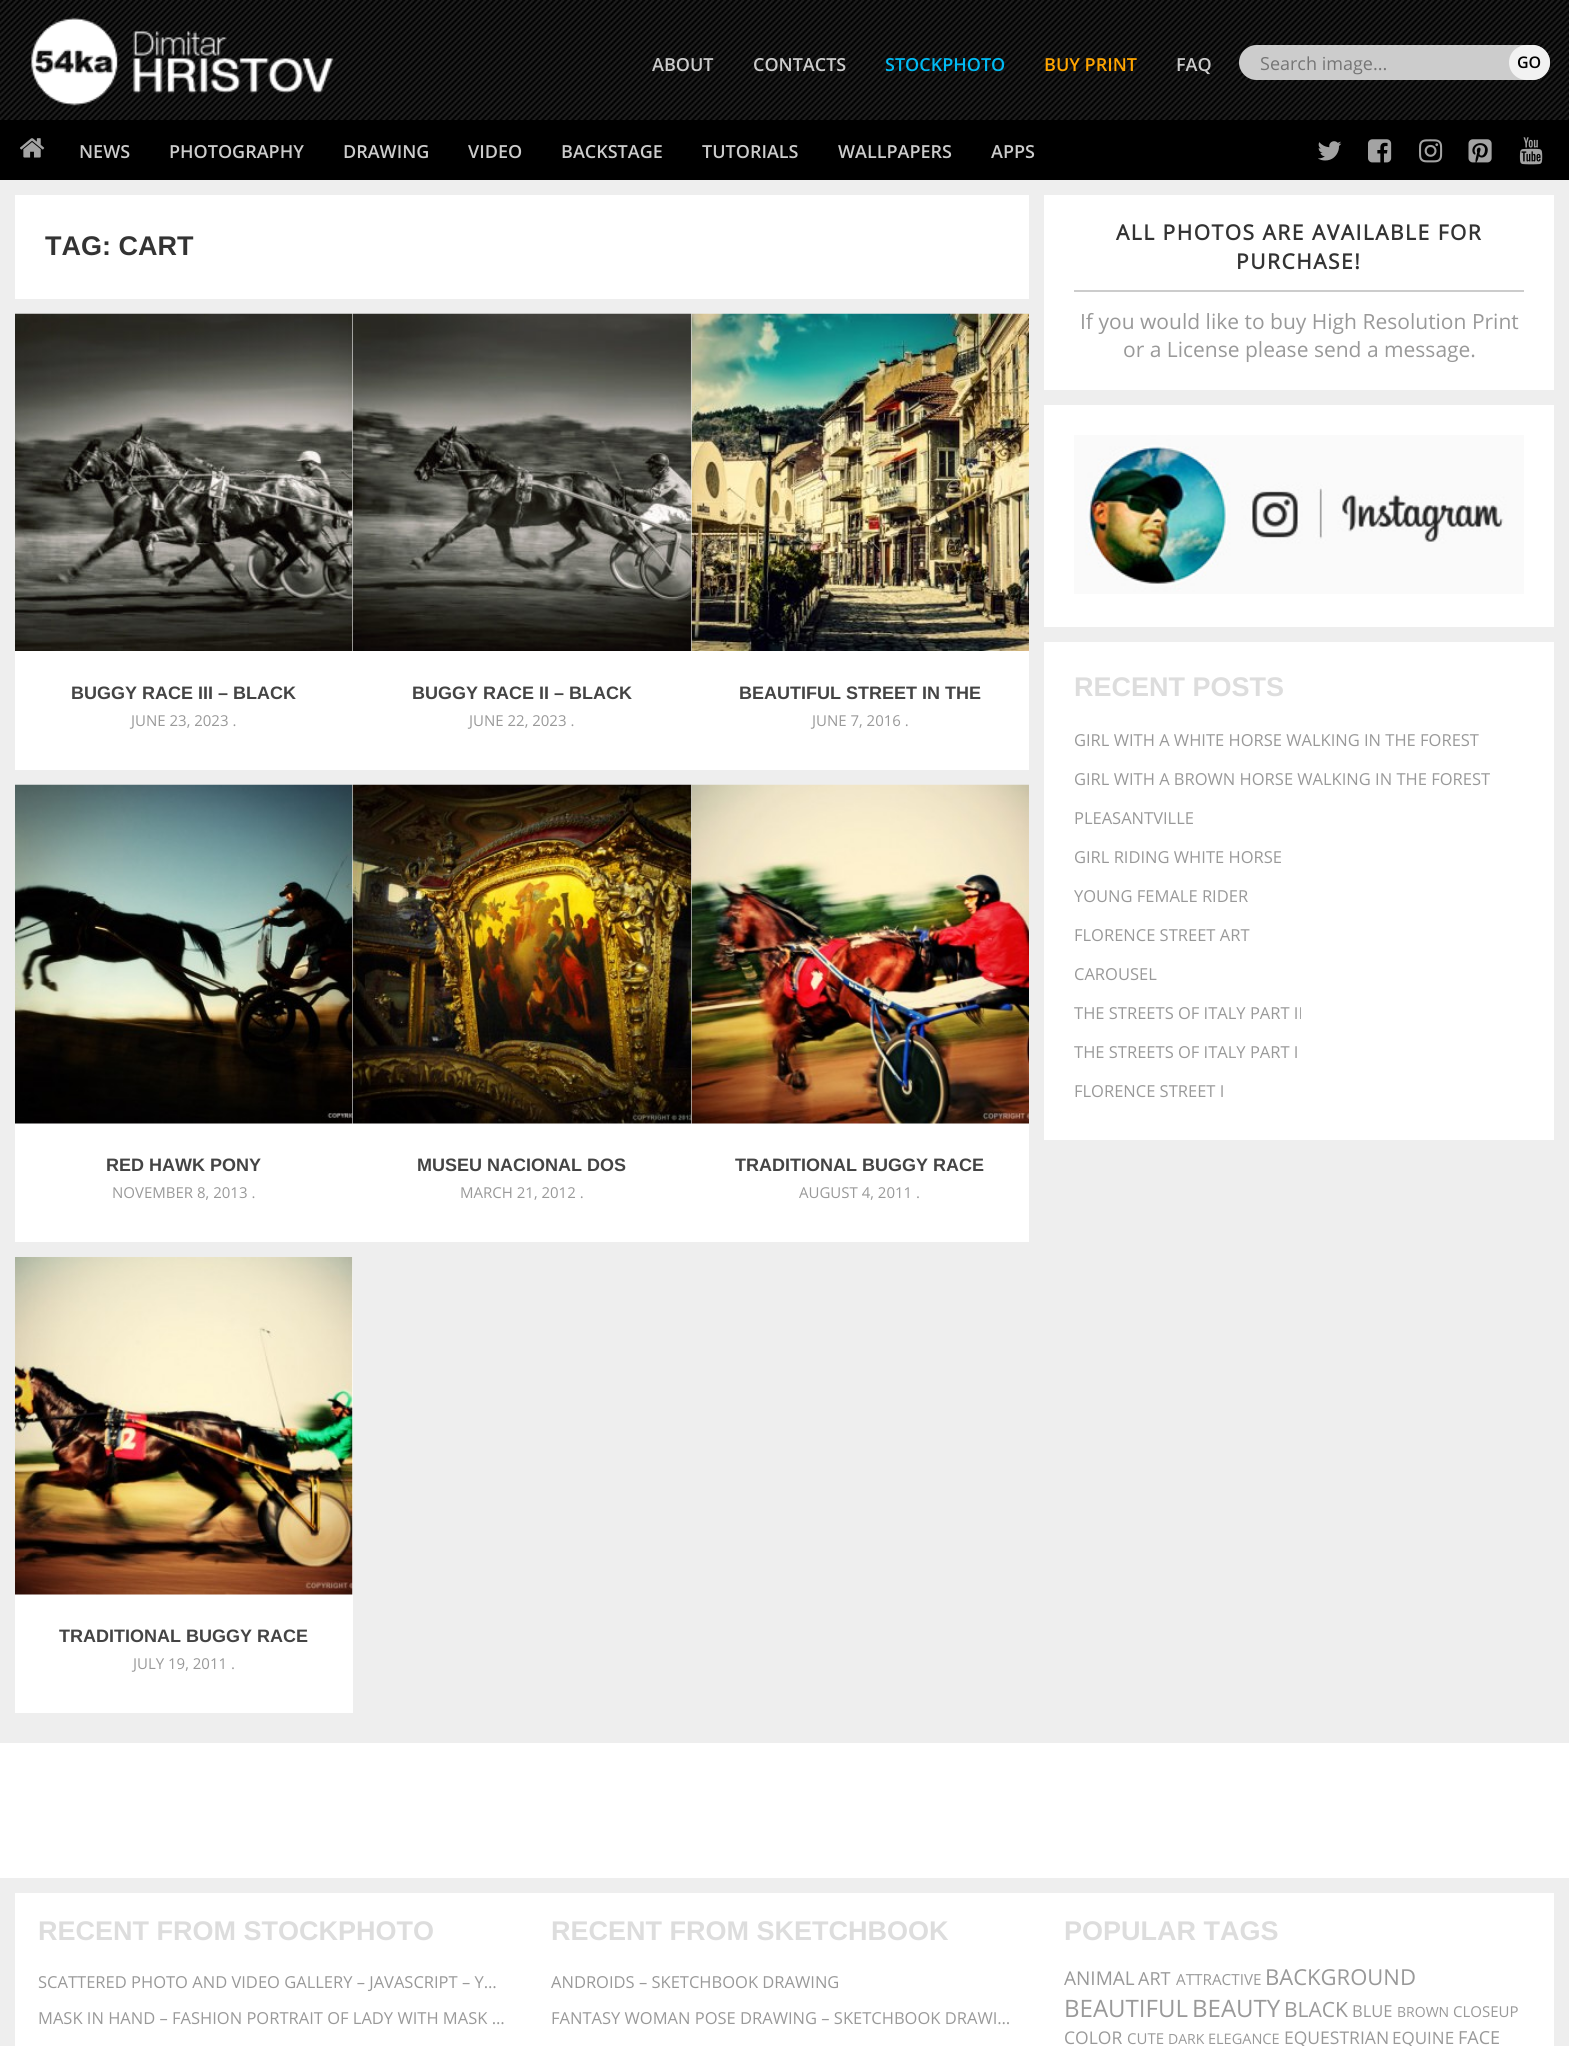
#include <cairo/cairo.h>
#include <math.h>
#include <stddef.h>

typedef struct { double x, y; const char *s; } line_t;
typedef struct { double x, y, w, h; unsigned color; } box_t;
static cairo_t *cr;

static void rgb(unsigned color)
{
	cairo_set_source_rgb(cr, (color >> 16) / 255.0, (color >> 8 & 255) / 255.0, (color & 255) / 255.0);
}

static void tracked(double x, double y, const char *s, double letter, double word)
{
	cairo_move_to(cr, x, y);
	while (*s) {
		char ch[5] = {0};
		int n = 0;
		do ch[n++] = *s++; while ((*s & 0xC0) == 0x80);
		cairo_show_text(cr, ch);
		cairo_rel_move_to(cr, letter + word * (*ch == ' '), 0);
	}
}

static void rrect(double x, double y, double w, double h, double r)
{
	cairo_new_sub_path(cr);
	cairo_arc(cr, x + w - r, y + h - r, r, 0, M_PI / 2);
	cairo_arc(cr, x + r, y + h - r, r, M_PI / 2, M_PI);
	cairo_arc(cr, x + r, y + r, r, M_PI, 1.5 * M_PI);
	cairo_arc(cr, x + w - r, y + r, r, 1.5 * M_PI, 2 * M_PI);
	cairo_close_path(cr);
}

static void image(const char *path, double x, double y, double w, double h)
{
	cairo_surface_t *image = cairo_image_surface_create_from_png(path);
	cairo_save(cr);
	cairo_set_source_surface(cr, image, x, y);
	cairo_rectangle(cr, x, y, w, h);
	cairo_fill(cr);
	cairo_restore(cr);
	cairo_surface_destroy(image);
}

int main(void) {
	cairo_surface_t *surface = cairo_image_surface_create(CAIRO_FORMAT_RGB24, 1569, 2046);
	cr = cairo_create(surface);
	cairo_font_options_t *options = cairo_font_options_create();
	cairo_font_options_set_hint_metrics(options, CAIRO_HINT_METRICS_OFF);
	cairo_font_options_set_hint_style(options, CAIRO_HINT_STYLE_NONE);
	cairo_set_font_options(cr, options);
	cairo_set_miter_limit(cr, 4);
	rgb(0xeeeeee);
	cairo_paint(cr);
	image("img/1.png", 0, 0, 1569, 120);
	image("img/2.png", 31, 17, 303, 89);
	rgb(0xcccccc);
	cairo_new_path(cr);
	cairo_move_to(cr, 1256.5, 45);
	cairo_line_to(cr, 1509, 45);
	cairo_line_to(cr, 1509, 80);
	cairo_line_to(cr, 1256.5, 80);
	cairo_curve_to(cr, 1247, 80, 1239, 72, 1239, 62.5);
	cairo_curve_to(cr, 1239, 53, 1247, 45, 1256.5, 45);
	cairo_close_path(cr);
	cairo_fill(cr);
	cairo_new_path(cr);
	cairo_move_to(cr, 1509, 45);
	cairo_line_to(cr, 1532.5, 45);
	cairo_curve_to(cr, 1542, 45, 1550, 53, 1550, 62.5);
	cairo_curve_to(cr, 1550, 72, 1542, 80, 1532.5, 80);
	cairo_line_to(cr, 1509, 80);
	cairo_close_path(cr);
	cairo_fill(cr);
	rgb(0xf2f2f2);
	rrect(1509, 45, 41, 35, 17.5);
	cairo_fill(cr);
	rgb(0x000000);
	cairo_rectangle(cr, 0, 120, 1569, 60);
	cairo_fill(cr);
	image("img/3.png", 20, 138, 25, 20);
	image("img/4.png", 1318, 141, 24, 20);
	image("img/5.png", 1368, 139, 24, 24);
	image("img/6.png", 1419, 139, 24, 24);
	image("img/7.png", 1468, 139, 24, 24);
	image("img/8.png", 1519, 137, 24, 28);
	{
		static const box_t items[] = {
			{15, 195, 1014, 104, 0xffffff},
			{1044, 195, 510, 195, 0xffffff},
			{1074, 290, 450, 2, 0xcccccc},
			{1044, 405, 510, 222, 0xffffff},
		};
		for (size_t i = 0; i < sizeof items / sizeof *items; i++) {
			rgb(items[i].color);
			cairo_rectangle(cr, items[i].x, items[i].y, items[i].w, items[i].h);
			cairo_fill(cr);
		}
	}
	image("img/9.png", 1074, 435, 450, 159);
	cairo_rectangle(cr, 1044, 642, 510, 498);
	cairo_fill(cr);
	cairo_rectangle(cr, 15, 314, 677, 456);
	cairo_fill(cr);
	image("img/10.png", 15, 313, 338, 338);
	image("img/11.png", 352, 313, 340, 338);
	cairo_rectangle(cr, 692, 651, 337, 119);
	cairo_fill(cr);
	image("img/12.png", 691, 313, 338, 338);
	cairo_rectangle(cr, 15, 785, 677, 457);
	cairo_fill(cr);
	image("img/13.png", 15, 784, 338, 340);
	image("img/14.png", 352, 784, 340, 340);
	cairo_rectangle(cr, 692, 1123, 337, 119);
	cairo_fill(cr);
	image("img/15.png", 691, 784, 338, 340);
	cairo_rectangle(cr, 15, 1257, 338, 456);
	cairo_fill(cr);
	image("img/16.png", 15, 1257, 338, 338);
	cairo_rectangle(cr, 0, 1743, 1569, 135);
	cairo_fill(cr);
	cairo_rectangle(cr, 15, 1893, 1539, 153);
	cairo_fill(cr);
	cairo_select_font_face(cr, "Open Sans SemiBold", CAIRO_FONT_SLANT_NORMAL, CAIRO_FONT_WEIGHT_NORMAL);
	cairo_set_font_size(cr, 18);
	rgb(0xcccccc);
	cairo_move_to(cr, 652, 71);
	cairo_show_text(cr, "ABOUT");
	cairo_move_to(cr, 753, 71);
	cairo_show_text(cr, "CONTACTS");
	rgb(0x00baf3);
	cairo_move_to(cr, 885, 71);
	cairo_show_text(cr, "STOCKPHOTO");
	rgb(0xffa500);
	cairo_move_to(cr, 1044, 71);
	cairo_show_text(cr, "BUY PRINT");
	rgb(0xcccccc);
	cairo_move_to(cr, 1176, 71);
	cairo_show_text(cr, "FAQ");
	cairo_select_font_face(cr, "Open Sans", CAIRO_FONT_SLANT_NORMAL, CAIRO_FONT_WEIGHT_NORMAL);
	rgb(0x757575);
	cairo_move_to(cr, 1260, 70);
	cairo_show_text(cr, "Search image...");
	cairo_select_font_face(cr, "Open Sans SemiBold", CAIRO_FONT_SLANT_NORMAL, CAIRO_FONT_WEIGHT_NORMAL);
	cairo_set_font_size(cr, 16);
	rgb(0x000000);
	cairo_move_to(cr, 1517, 68);
	cairo_show_text(cr, "GO");
	cairo_set_font_size(cr, 18);
	rgb(0xcccccc);
	{
		static const line_t items[] = {
			{79, 158, "NEWS"},
			{169, 158, "PHOTOGRAPHY"},
			{343, 158, "DRAWING"},
			{468, 158, "VIDEO"},
			{561, 158, "BACKSTAGE"},
			{702, 158, "TUTORIALS"},
			{838, 158, "WALLPAPERS"},
			{991, 158, "APPS"},
		};
		for (size_t i = 0; i < sizeof items / sizeof *items; i++) {
			cairo_move_to(cr, items[i].x, items[i].y);
			cairo_show_text(cr, items[i].s);
		}
	}
	cairo_select_font_face(cr, "Liberation Sans", CAIRO_FONT_SLANT_NORMAL, CAIRO_FONT_WEIGHT_BOLD);
	cairo_set_font_size(cr, 27);
	rgb(0x333333);
	cairo_move_to(cr, 45, 255);
	cairo_show_text(cr, "TAG: CART");
	cairo_select_font_face(cr, "Open Sans", CAIRO_FONT_SLANT_NORMAL, CAIRO_FONT_WEIGHT_BOLD);
	cairo_set_font_size(cr, 21);
	tracked(1116, 240, "ALL PHOTOS ARE AVAILABLE FOR", 1.5, 0);
	tracked(1236, 269, "PURCHASE!", 1.5, 0);
	cairo_select_font_face(cr, "Open Sans", CAIRO_FONT_SLANT_NORMAL, CAIRO_FONT_WEIGHT_NORMAL);
	rgb(0x999999);
	cairo_move_to(cr, 1080, 329);
	cairo_show_text(cr, "If you would like to buy High Resolution Print");
	cairo_move_to(cr, 1123, 357);
	cairo_show_text(cr, "or a License please send a message.");
	cairo_select_font_face(cr, "Liberation Sans", CAIRO_FONT_SLANT_NORMAL, CAIRO_FONT_WEIGHT_BOLD);
	cairo_set_font_size(cr, 27);
	rgb(0xdddddd);
	cairo_move_to(cr, 1074, 696);
	cairo_show_text(cr, "RECENT POSTS");
	cairo_select_font_face(cr, "Open Sans", CAIRO_FONT_SLANT_NORMAL, CAIRO_FONT_WEIGHT_NORMAL);
	cairo_set_font_size(cr, 16.5);
	rgb(0x999999);
	{
		static const line_t items[] = {
			{1074, 746, "GIRL WITH A WHITE HORSE WALKING IN THE FOREST"},
			{1074, 785, "GIRL WITH A BROWN HORSE WALKING IN THE FOREST"},
			{1074, 824, "PLEASANTVILLE"},
			{1074, 863, "GIRL RIDING WHITE HORSE"},
			{1074, 902, "YOUNG FEMALE RIDER"},
			{1074, 941, "FLORENCE STREET ART"},
			{1074, 980, "CAROUSEL"},
			{1074, 1019, "THE STREETS OF ITALY PART II"},
			{1074, 1058, "THE STREETS OF ITALY PART I"},
			{1074, 1097, "FLORENCE STREET I"},
		};
		for (size_t i = 0; i < sizeof items / sizeof *items; i++) {
			cairo_move_to(cr, items[i].x, items[i].y);
			cairo_show_text(cr, items[i].s);
		}
	}
	cairo_select_font_face(cr, "Liberation Sans", CAIRO_FONT_SLANT_NORMAL, CAIRO_FONT_WEIGHT_BOLD);
	cairo_set_font_size(cr, 18);
	rgb(0x444444);
	cairo_move_to(cr, 71, 699);
	cairo_show_text(cr, "BUGGY RACE III – BLACK");
	cairo_select_font_face(cr, "Open Sans", CAIRO_FONT_SLANT_NORMAL, CAIRO_FONT_WEIGHT_NORMAL);
	cairo_set_font_size(cr, 15);
	rgb(0x999999);
	cairo_move_to(cr, 131, 726);
	cairo_show_text(cr, "JUNE 23, 2023 .");
	cairo_select_font_face(cr, "Liberation Sans", CAIRO_FONT_SLANT_NORMAL, CAIRO_FONT_WEIGHT_BOLD);
	cairo_set_font_size(cr, 18);
	rgb(0x444444);
	cairo_move_to(cr, 412, 699);
	cairo_show_text(cr, "BUGGY RACE II – BLACK");
	cairo_select_font_face(cr, "Open Sans", CAIRO_FONT_SLANT_NORMAL, CAIRO_FONT_WEIGHT_NORMAL);
	cairo_set_font_size(cr, 15);
	rgb(0x999999);
	cairo_move_to(cr, 469, 726);
	cairo_show_text(cr, "JUNE 22, 2023 .");
	cairo_select_font_face(cr, "Liberation Sans", CAIRO_FONT_SLANT_NORMAL, CAIRO_FONT_WEIGHT_BOLD);
	cairo_set_font_size(cr, 18);
	rgb(0x444444);
	cairo_move_to(cr, 739, 699);
	cairo_show_text(cr, "BEAUTIFUL STREET IN THE");
	cairo_select_font_face(cr, "Open Sans", CAIRO_FONT_SLANT_NORMAL, CAIRO_FONT_WEIGHT_NORMAL);
	cairo_set_font_size(cr, 15);
	rgb(0x999999);
	cairo_move_to(cr, 812, 726);
	cairo_show_text(cr, "JUNE 7, 2016 .");
	cairo_select_font_face(cr, "Liberation Sans", CAIRO_FONT_SLANT_NORMAL, CAIRO_FONT_WEIGHT_BOLD);
	cairo_set_font_size(cr, 18);
	rgb(0x444444);
	cairo_move_to(cr, 106, 1171);
	cairo_show_text(cr, "RED HAWK PONY");
	cairo_select_font_face(cr, "Open Sans", CAIRO_FONT_SLANT_NORMAL, CAIRO_FONT_WEIGHT_NORMAL);
	cairo_set_font_size(cr, 15);
	rgb(0x999999);
	cairo_move_to(cr, 112, 1198);
	cairo_show_text(cr, "NOVEMBER 8, 2013 .");
	cairo_select_font_face(cr, "Liberation Sans", CAIRO_FONT_SLANT_NORMAL, CAIRO_FONT_WEIGHT_BOLD);
	cairo_set_font_size(cr, 18);
	rgb(0x444444);
	cairo_move_to(cr, 417, 1171);
	cairo_show_text(cr, "MUSEU NACIONAL DOS");
	cairo_select_font_face(cr, "Open Sans", CAIRO_FONT_SLANT_NORMAL, CAIRO_FONT_WEIGHT_NORMAL);
	cairo_set_font_size(cr, 15);
	rgb(0x999999);
	cairo_move_to(cr, 460, 1198);
	cairo_show_text(cr, "MARCH 21, 2012 .");
	cairo_select_font_face(cr, "Liberation Sans", CAIRO_FONT_SLANT_NORMAL, CAIRO_FONT_WEIGHT_BOLD);
	cairo_set_font_size(cr, 18);
	rgb(0x444444);
	cairo_move_to(cr, 735, 1171);
	cairo_show_text(cr, "TRADITIONAL BUGGY RACE");
	cairo_select_font_face(cr, "Open Sans", CAIRO_FONT_SLANT_NORMAL, CAIRO_FONT_WEIGHT_NORMAL);
	cairo_set_font_size(cr, 15);
	rgb(0x999999);
	cairo_move_to(cr, 799, 1198);
	cairo_show_text(cr, "AUGUST 4, 2011 .");
	cairo_select_font_face(cr, "Liberation Sans", CAIRO_FONT_SLANT_NORMAL, CAIRO_FONT_WEIGHT_BOLD);
	cairo_set_font_size(cr, 18);
	rgb(0x444444);
	cairo_move_to(cr, 59, 1642);
	cairo_show_text(cr, "TRADITIONAL BUGGY RACE");
	cairo_select_font_face(cr, "Open Sans", CAIRO_FONT_SLANT_NORMAL, CAIRO_FONT_WEIGHT_NORMAL);
	cairo_set_font_size(cr, 15);
	rgb(0x999999);
	cairo_move_to(cr, 133, 1669);
	cairo_show_text(cr, "JULY 19, 2011 .");
	cairo_select_font_face(cr, "Liberation Sans", CAIRO_FONT_SLANT_NORMAL, CAIRO_FONT_WEIGHT_BOLD);
	cairo_set_font_size(cr, 27);
	rgb(0xdddddd);
	cairo_move_to(cr, 38, 1940);
	cairo_show_text(cr, "RECENT FROM STOCKPHOTO");
	cairo_select_font_face(cr, "Open Sans", CAIRO_FONT_SLANT_NORMAL, CAIRO_FONT_WEIGHT_NORMAL);
	cairo_set_font_size(cr, 16.5);
	rgb(0x999999);
	cairo_move_to(cr, 38, 1988);
	cairo_show_text(cr, "SCATTERED PHOTO AND VIDEO GALLERY – JAVASCRIPT – Y…");
	cairo_move_to(cr, 38, 2024);
	cairo_show_text(cr, "MASK IN HAND – FASHION PORTRAIT OF LADY WITH MASK …");
	cairo_select_font_face(cr, "Liberation Sans", CAIRO_FONT_SLANT_NORMAL, CAIRO_FONT_WEIGHT_BOLD);
	cairo_set_font_size(cr, 27);
	rgb(0xdddddd);
	cairo_move_to(cr, 551, 1940);
	cairo_show_text(cr, "RECENT FROM SKETCHBOOK");
	cairo_select_font_face(cr, "Open Sans", CAIRO_FONT_SLANT_NORMAL, CAIRO_FONT_WEIGHT_NORMAL);
	cairo_set_font_size(cr, 16.5);
	rgb(0x999999);
	cairo_move_to(cr, 551, 1988);
	cairo_show_text(cr, "ANDROIDS – SKETCHBOOK DRAWING");
	cairo_move_to(cr, 551, 2024);
	cairo_show_text(cr, "FANTASY WOMAN POSE DRAWING – SKETCHBOOK DRAWI…");
	cairo_select_font_face(cr, "Liberation Sans", CAIRO_FONT_SLANT_NORMAL, CAIRO_FONT_WEIGHT_BOLD);
	cairo_set_font_size(cr, 27);
	rgb(0xdddddd);
	cairo_move_to(cr, 1064, 1940);
	cairo_show_text(cr, "POPULAR TAGS");
	cairo_select_font_face(cr, "Open Sans", CAIRO_FONT_SLANT_NORMAL, CAIRO_FONT_WEIGHT_NORMAL);
	cairo_set_font_size(cr, 19);
	rgb(0x999999);
	cairo_move_to(cr, 1064, 1985);
	cairo_show_text(cr, "ANIMAL");
	cairo_set_font_size(cr, 18);
	cairo_move_to(cr, 1138, 1985);
	cairo_show_text(cr, "ART");
	cairo_set_font_size(cr, 15.25);
	cairo_move_to(cr, 1176, 1985);
	cairo_show_text(cr, "ATTRACTIVE");
	cairo_set_font_size(cr, 22);
	cairo_move_to(cr, 1265, 1985);
	cairo_show_text(cr, "BACKGROUND");
	cairo_set_font_size(cr, 24);
	cairo_move_to(cr, 1064, 2017);
	cairo_show_text(cr, "BEAUTIFUL");
	cairo_move_to(cr, 1192, 2017);
	cairo_show_text(cr, "BEAUTY");
	cairo_set_font_size(cr, 21);
	cairo_move_to(cr, 1284, 2017);
	cairo_show_text(cr, "BLACK");
	cairo_set_font_size(cr, 16.5);
	cairo_move_to(cr, 1352, 2017);
	cairo_show_text(cr, "BLUE");
	cairo_set_font_size(cr, 14);
	cairo_move_to(cr, 1397, 2017);
	cairo_show_text(cr, "BROWN");
	cairo_set_font_size(cr, 15);
	cairo_move_to(cr, 1453, 2017);
	cairo_show_text(cr, "CLOSEUP");
	cairo_set_font_size(cr, 17.5);
	cairo_move_to(cr, 1064, 2044);
	cairo_show_text(cr, "COLOR");
	cairo_set_font_size(cr, 15);
	cairo_move_to(cr, 1127, 2044);
	cairo_show_text(cr, "CUTE");
	cairo_set_font_size(cr, 14);
	cairo_move_to(cr, 1168, 2044);
	cairo_show_text(cr, "DARK");
	cairo_set_font_size(cr, 14.5);
	cairo_move_to(cr, 1208, 2044);
	cairo_show_text(cr, "ELEGANCE");
	cairo_set_font_size(cr, 17.5);
	cairo_move_to(cr, 1284, 2044);
	cairo_show_text(cr, "EQUESTRIAN");
	cairo_set_font_size(cr, 17);
	cairo_move_to(cr, 1392, 2044);
	cairo_show_text(cr, "EQUINE");
	cairo_set_font_size(cr, 18);
	cairo_move_to(cr, 1458, 2044);
	cairo_show_text(cr, "FACE");
	cairo_surface_write_to_png(surface, "page.png");
	cairo_font_options_destroy(options);
	cairo_destroy(cr);
	cairo_surface_destroy(surface);
	return 0;
}
